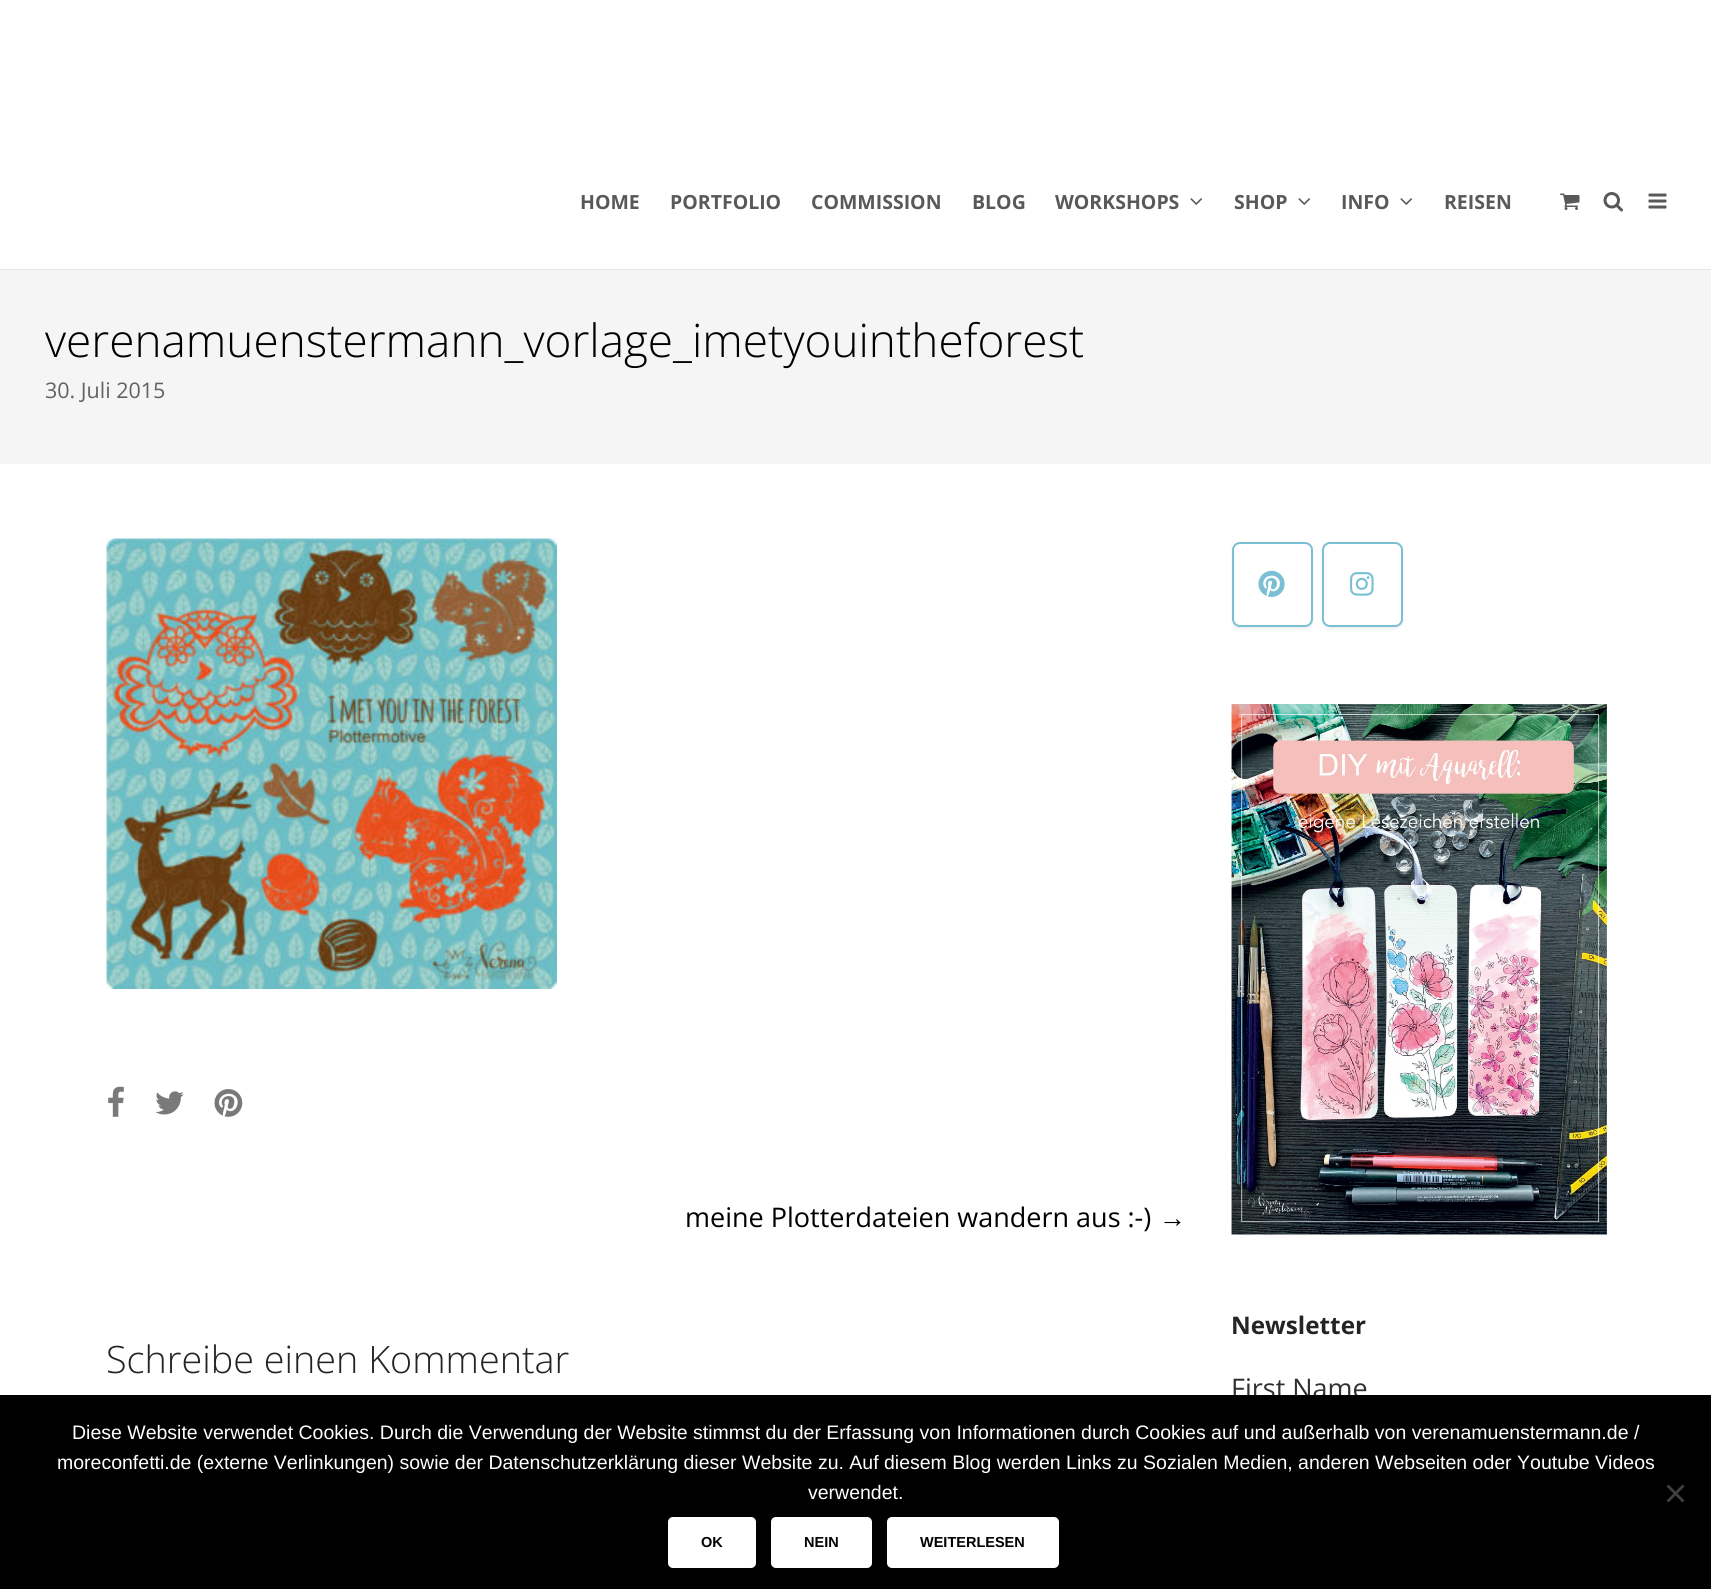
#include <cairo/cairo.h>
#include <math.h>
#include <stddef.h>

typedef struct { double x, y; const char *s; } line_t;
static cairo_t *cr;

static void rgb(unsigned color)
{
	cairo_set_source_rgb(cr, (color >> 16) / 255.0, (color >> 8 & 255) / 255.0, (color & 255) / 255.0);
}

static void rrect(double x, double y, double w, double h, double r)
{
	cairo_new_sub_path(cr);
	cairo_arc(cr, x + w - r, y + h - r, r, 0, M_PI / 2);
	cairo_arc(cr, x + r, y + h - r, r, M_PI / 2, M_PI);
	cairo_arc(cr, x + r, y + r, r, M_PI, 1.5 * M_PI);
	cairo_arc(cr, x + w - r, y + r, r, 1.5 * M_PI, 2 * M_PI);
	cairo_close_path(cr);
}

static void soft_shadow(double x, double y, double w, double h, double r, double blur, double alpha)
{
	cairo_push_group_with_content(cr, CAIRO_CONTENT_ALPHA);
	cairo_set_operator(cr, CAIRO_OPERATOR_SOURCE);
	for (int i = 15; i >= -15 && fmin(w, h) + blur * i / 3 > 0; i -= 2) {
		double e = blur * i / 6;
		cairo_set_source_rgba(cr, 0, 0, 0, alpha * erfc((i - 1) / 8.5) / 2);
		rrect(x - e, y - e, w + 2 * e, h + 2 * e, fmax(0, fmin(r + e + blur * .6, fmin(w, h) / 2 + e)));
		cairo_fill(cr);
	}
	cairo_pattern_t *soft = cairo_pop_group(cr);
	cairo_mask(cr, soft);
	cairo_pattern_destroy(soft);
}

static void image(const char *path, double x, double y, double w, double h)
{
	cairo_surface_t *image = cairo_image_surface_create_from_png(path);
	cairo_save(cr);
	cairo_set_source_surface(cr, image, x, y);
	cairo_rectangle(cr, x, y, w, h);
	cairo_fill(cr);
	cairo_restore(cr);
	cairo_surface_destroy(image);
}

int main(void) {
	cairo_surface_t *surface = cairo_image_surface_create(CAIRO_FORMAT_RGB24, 1711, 1589);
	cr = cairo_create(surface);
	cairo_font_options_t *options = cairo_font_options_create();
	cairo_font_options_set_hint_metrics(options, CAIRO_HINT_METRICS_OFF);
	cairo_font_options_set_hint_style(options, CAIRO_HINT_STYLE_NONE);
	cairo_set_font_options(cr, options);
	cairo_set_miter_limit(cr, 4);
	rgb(0xffffff);
	cairo_paint(cr);
	rgb(0xe6e6e6);
	cairo_new_path(cr);
	cairo_move_to(cr, 0, 268);
	cairo_line_to(cr, 0, 270);
	cairo_line_to(cr, 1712, 270);
	cairo_line_to(cr, 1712, 0);
	cairo_line_to(cr, 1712, 268);
	cairo_close_path(cr);
	cairo_fill(cr);
	rgb(0xffffff);
	cairo_rectangle(cr, 0, 268, 1711, 1);
	cairo_fill(cr);
	image("img/1.png", 1190, 198, 12, 7);
	image("img/1.png", 1298, 198, 12, 7);
	image("img/1.png", 1400, 198, 12, 7);
	image("img/2.png", 1560, 193, 20, 17);
	image("img/3.png", 1603, 192, 20, 20);
	image("img/4.png", 1648, 193, 19, 16);
	rgb(0xf5f5f5);
	cairo_rectangle(cr, 0, 270, 1711, 194);
	cairo_fill(cr);
	image("img/5.png", 106, 538, 451, 451);
	image("img/6.png", 108, 1086, 16, 31);
	image("img/7.png", 155, 1091, 29, 24);
	image("img/8.png", 214, 1089, 29, 28);
	cairo_save(cr);
	cairo_set_fill_rule(cr, CAIRO_FILL_RULE_EVEN_ODD);
	cairo_new_path(cr);
	cairo_move_to(cr, 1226, 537);
	cairo_line_to(cr, 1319, 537);
	cairo_line_to(cr, 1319, 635);
	cairo_line_to(cr, 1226, 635);
	cairo_close_path(cr);
	cairo_move_to(cr, 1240, 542);
	cairo_line_to(cr, 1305, 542);
	cairo_curve_to(cr, 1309.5, 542, 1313, 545.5, 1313, 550);
	cairo_line_to(cr, 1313, 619);
	cairo_curve_to(cr, 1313, 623.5, 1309.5, 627, 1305, 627);
	cairo_line_to(cr, 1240, 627);
	cairo_curve_to(cr, 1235.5, 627, 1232, 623.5, 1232, 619);
	cairo_line_to(cr, 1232, 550);
	cairo_curve_to(cr, 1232, 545.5, 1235.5, 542, 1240, 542);
	cairo_close_path(cr);
	cairo_clip(cr);
	rgb(0x000000);
	soft_shadow(1232, 543, 81, 86, 8, 1.5, 0.07);
	cairo_restore(cr);
	rrect(1233, 543, 79, 83, 7);
	rgb(0x7abfd3);
	cairo_stroke(cr);
	image("img/9.png", 1258, 570, 27, 27);
	cairo_save(cr);
	cairo_set_fill_rule(cr, CAIRO_FILL_RULE_EVEN_ODD);
	cairo_new_path(cr);
	cairo_move_to(cr, 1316, 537);
	cairo_line_to(cr, 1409, 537);
	cairo_line_to(cr, 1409, 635);
	cairo_line_to(cr, 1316, 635);
	cairo_close_path(cr);
	cairo_move_to(cr, 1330, 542);
	cairo_line_to(cr, 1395, 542);
	cairo_curve_to(cr, 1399.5, 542, 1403, 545.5, 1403, 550);
	cairo_line_to(cr, 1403, 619);
	cairo_curve_to(cr, 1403, 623.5, 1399.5, 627, 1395, 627);
	cairo_line_to(cr, 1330, 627);
	cairo_curve_to(cr, 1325.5, 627, 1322, 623.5, 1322, 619);
	cairo_line_to(cr, 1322, 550);
	cairo_curve_to(cr, 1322, 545.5, 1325.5, 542, 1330, 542);
	cairo_close_path(cr);
	cairo_clip(cr);
	rgb(0x000000);
	soft_shadow(1322, 543, 81, 86, 8, 1.5, 0.07);
	cairo_restore(cr);
	rrect(1323, 543, 79, 83, 7);
	cairo_stroke(cr);
	image("img/10.png", 1350, 572, 24, 24);
	image("img/11.png", 1231, 704, 376, 531);
	cairo_select_font_face(cr, "Open Sans", CAIRO_FONT_SLANT_NORMAL, CAIRO_FONT_WEIGHT_BOLD);
	cairo_set_font_size(cr, 19.5);
	rgb(0x595959);
	{
		static const line_t items[] = {
			{580, 209, "HOME"},
			{670, 209, "PORTFOLIO"},
			{811, 209, "COMMISSION"},
			{972, 209, "BLOG"},
			{1055, 209, "WORKSHOPS"},
			{1234, 209, "SHOP"},
			{1341, 209, "INFO"},
			{1444, 209, "REISEN"},
		};
		for (size_t i = 0; i < sizeof items / sizeof *items; i++) {
			cairo_move_to(cr, items[i].x, items[i].y);
			cairo_show_text(cr, items[i].s);
		}
	}
	cairo_select_font_face(cr, "Open Sans Light", CAIRO_FONT_SLANT_NORMAL, CAIRO_FONT_WEIGHT_NORMAL);
	cairo_set_font_size(cr, 45.9);
	rgb(0x000000);
	cairo_move_to(cr, 45, 357);
	cairo_show_text(cr, "verenamuenstermann_vorlage_imetyouintheforest");
	cairo_select_font_face(cr, "Open Sans", CAIRO_FONT_SLANT_NORMAL, CAIRO_FONT_WEIGHT_NORMAL);
	cairo_set_font_size(cr, 21.5);
	rgb(0x626262);
	cairo_move_to(cr, 45, 398);
	cairo_show_text(cr, "30. Juli 2015");
	cairo_set_font_size(cr, 27);
	rgb(0x000000);
	cairo_move_to(cr, 685, 1227);
	cairo_show_text(cr, "meine Plotterdateien wandern aus :-)");
	cairo_select_font_face(cr, "Liberation Sans", CAIRO_FONT_SLANT_NORMAL, CAIRO_FONT_WEIGHT_NORMAL);
	cairo_move_to(cr, 1159, 1227);
	cairo_show_text(cr, "→");
	cairo_select_font_face(cr, "Open Sans Light", CAIRO_FONT_SLANT_NORMAL, CAIRO_FONT_WEIGHT_NORMAL);
	cairo_set_font_size(cr, 37.75);
	rgb(0x242424);
	cairo_move_to(cr, 106, 1373);
	cairo_show_text(cr, "Schreibe einen Kommentar");
	cairo_select_font_face(cr, "Open Sans", CAIRO_FONT_SLANT_NORMAL, CAIRO_FONT_WEIGHT_BOLD);
	cairo_set_font_size(cr, 24.25);
	cairo_move_to(cr, 1231, 1334);
	cairo_show_text(cr, "Newsletter");
	cairo_select_font_face(cr, "Open Sans", CAIRO_FONT_SLANT_NORMAL, CAIRO_FONT_WEIGHT_NORMAL);
	cairo_set_font_size(cr, 27);
	rgb(0x303030);
	cairo_move_to(cr, 1231, 1398);
	cairo_show_text(cr, "First Name");
	rgb(0x000000);
	cairo_rectangle(cr, 0, 1395, 1711, 194);
	cairo_fill(cr);
	cairo_select_font_face(cr, "Liberation Sans", CAIRO_FONT_SLANT_NORMAL, CAIRO_FONT_WEIGHT_NORMAL);
	cairo_set_font_size(cr, 19.5);
	rgb(0xffffff);
	{
		static const line_t items[] = {
			{72, 1439, "Diese Website verwendet Cookies. Durch die Verwendung der Website stimmst du der Erfassung von Informationen durch Cookies auf und außerhalb von verenamuenstermann.de /"},
			{57, 1469, "moreconfetti.de (externe Verlinkungen) sowie der Datenschutzerklärung dieser Website zu. Auf diesem Blog werden Links zu Sozialen Medien, anderen Webseiten oder Youtube Videos"},
			{808, 1499, "verwendet."},
		};
		for (size_t i = 0; i < sizeof items / sizeof *items; i++) {
			cairo_move_to(cr, items[i].x, items[i].y);
			cairo_show_text(cr, items[i].s);
		}
	}
	rgb(0x404040);
	cairo_new_path(cr);
	cairo_move_to(cr, 1682.5, 1484.5);
	cairo_line_to(cr, 1684.5, 1486.5);
	cairo_line_to(cr, 1668.5, 1502.5);
	cairo_line_to(cr, 1666.5, 1500.5);
	cairo_close_path(cr);
	cairo_fill(cr);
	cairo_new_path(cr);
	cairo_move_to(cr, 1666.5, 1486.5);
	cairo_line_to(cr, 1668.5, 1484.5);
	cairo_line_to(cr, 1684.5, 1500.5);
	cairo_line_to(cr, 1682.5, 1502.5);
	cairo_close_path(cr);
	cairo_fill(cr);
	rgb(0xffffff);
	rrect(668, 1517, 88, 51, 5);
	cairo_fill(cr);
	cairo_select_font_face(cr, "Liberation Sans", CAIRO_FONT_SLANT_NORMAL, CAIRO_FONT_WEIGHT_BOLD);
	cairo_set_font_size(cr, 14.5);
	rgb(0x000000);
	cairo_move_to(cr, 701, 1547);
	cairo_show_text(cr, "OK");
	rgb(0xffffff);
	rrect(771, 1517, 101, 51, 5);
	cairo_fill(cr);
	rgb(0x000000);
	cairo_move_to(cr, 804, 1547);
	cairo_show_text(cr, "NEIN");
	rgb(0xffffff);
	rrect(887, 1517, 172, 51, 5);
	cairo_fill(cr);
	rgb(0x000000);
	cairo_move_to(cr, 920, 1547);
	cairo_show_text(cr, "WEITERLESEN");
	cairo_surface_write_to_png(surface, "page.png");
	cairo_font_options_destroy(options);
	cairo_destroy(cr);
	cairo_surface_destroy(surface);
	return 0;
}
